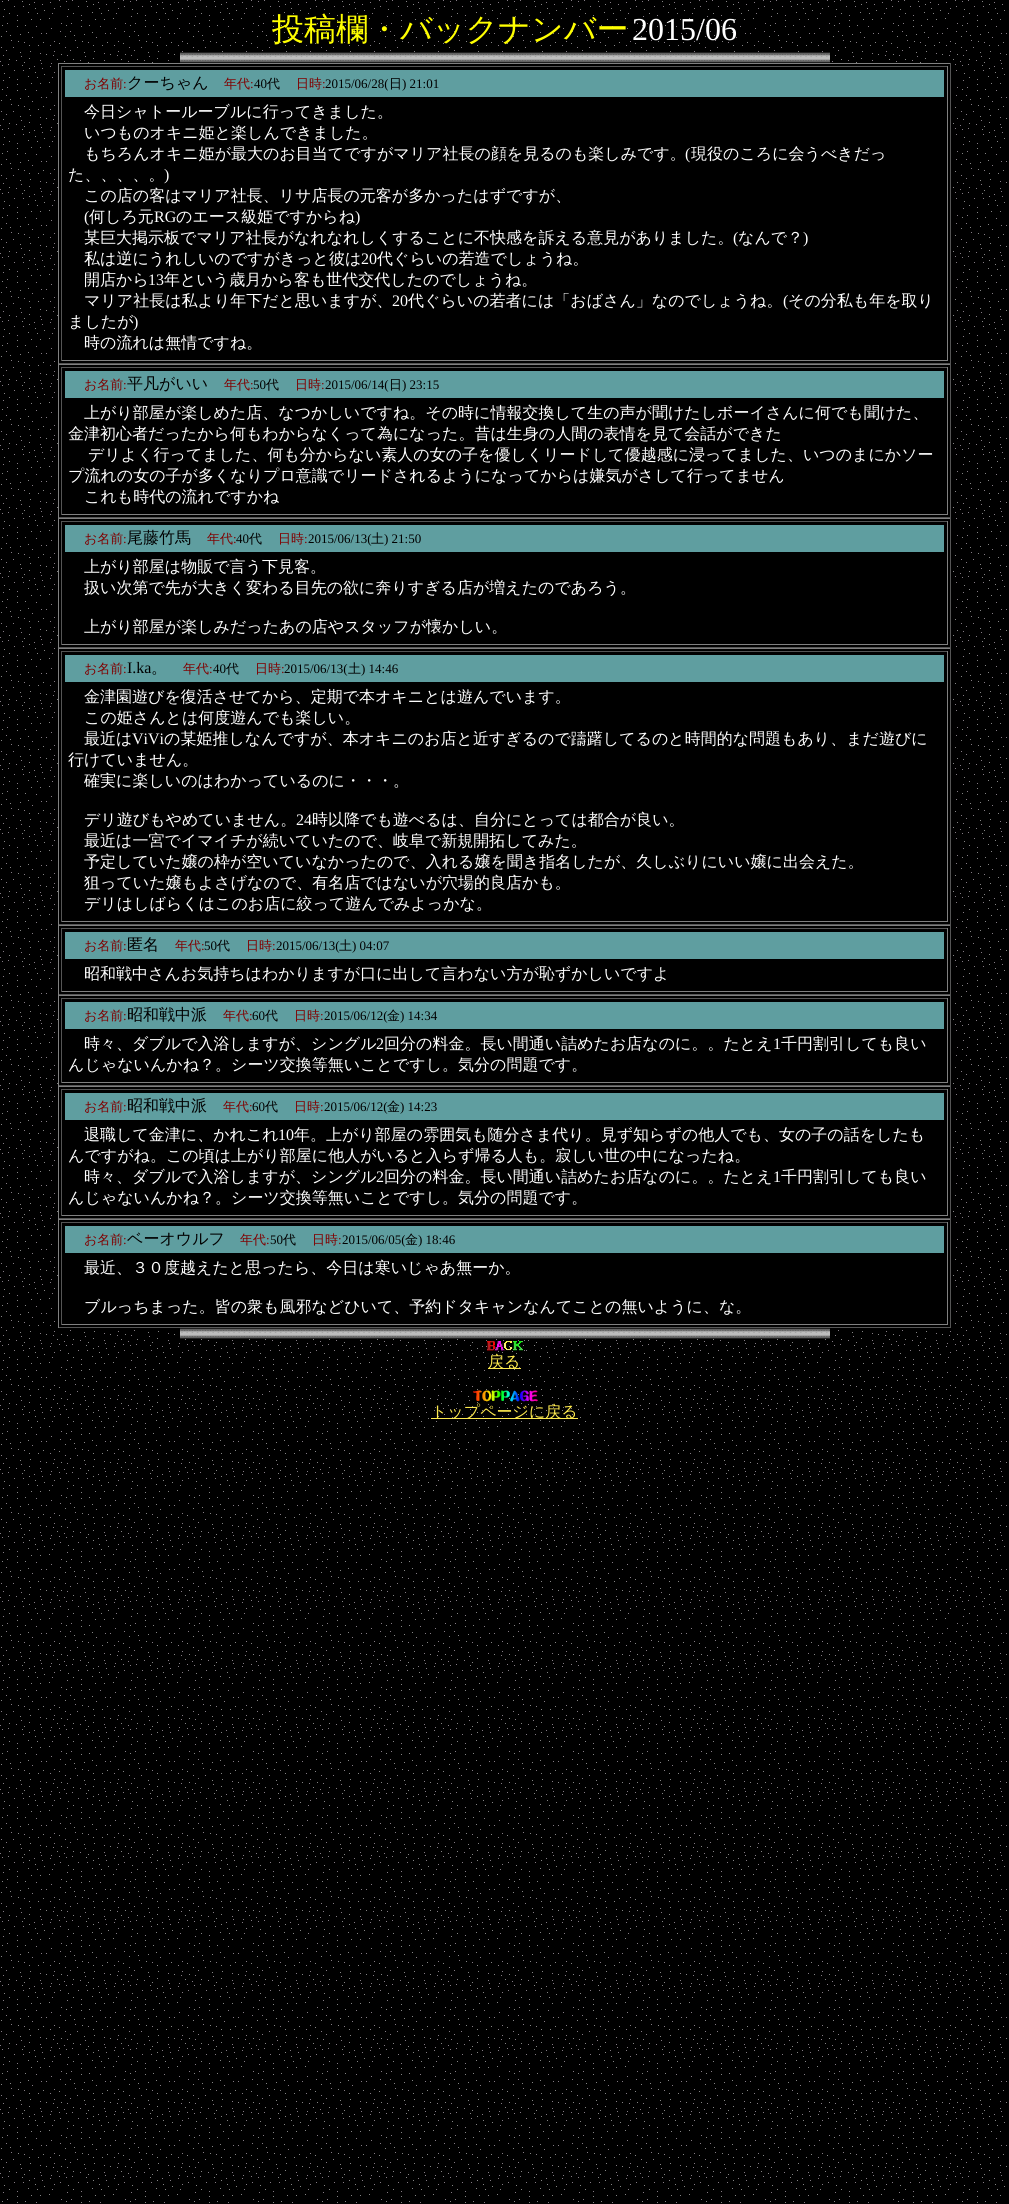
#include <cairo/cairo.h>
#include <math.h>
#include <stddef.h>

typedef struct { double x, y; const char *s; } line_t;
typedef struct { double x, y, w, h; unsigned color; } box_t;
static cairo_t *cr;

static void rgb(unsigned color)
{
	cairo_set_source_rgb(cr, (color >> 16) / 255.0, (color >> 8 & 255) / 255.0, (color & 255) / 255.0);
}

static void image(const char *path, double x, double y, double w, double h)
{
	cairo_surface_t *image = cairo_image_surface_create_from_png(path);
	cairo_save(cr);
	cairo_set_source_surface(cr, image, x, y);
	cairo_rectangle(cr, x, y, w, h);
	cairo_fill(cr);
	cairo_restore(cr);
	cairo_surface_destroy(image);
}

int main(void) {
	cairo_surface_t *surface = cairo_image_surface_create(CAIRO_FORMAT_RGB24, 1009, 2204);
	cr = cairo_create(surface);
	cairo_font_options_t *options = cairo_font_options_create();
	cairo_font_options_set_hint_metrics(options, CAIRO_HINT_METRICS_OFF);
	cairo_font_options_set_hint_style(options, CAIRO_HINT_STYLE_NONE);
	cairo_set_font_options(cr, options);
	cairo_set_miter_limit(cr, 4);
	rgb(0x000000);
	cairo_paint(cr);
	image("img/1.png", 0, 0, 1007, 2203);
	image("img/2.png", 180, 52, 650, 11);
	{
		static const box_t items[] = {
			{59, 64, 891, 299, 0x000000},
			{58, 63, 893, 1, 0x808080},
			{950, 63, 1, 301, 0x555555},
			{58, 363, 893, 1, 0x555555},
			{58, 63, 1, 301, 0x808080},
			{61, 66, 887, 1, 0x555555},
			{947, 66, 1, 295, 0x808080},
			{61, 360, 887, 1, 0x808080},
			{61, 66, 1, 295, 0x555555},
			{65, 70, 879, 27, 0x5f9ea0},
			{59, 365, 891, 152, 0x000000},
			{58, 364, 893, 1, 0x808080},
			{950, 364, 1, 154, 0x555555},
			{58, 517, 893, 1, 0x555555},
			{58, 364, 1, 154, 0x808080},
			{61, 367, 887, 1, 0x555555},
			{947, 367, 1, 148, 0x808080},
			{61, 514, 887, 1, 0x808080},
			{61, 367, 1, 148, 0x555555},
			{65, 371, 879, 27, 0x5f9ea0},
			{59, 520, 891, 127, 0x000000},
			{58, 518, 893, 1, 0x808080},
			{950, 518, 1, 130, 0x555555},
			{58, 647, 893, 1, 0x555555},
			{58, 518, 1, 130, 0x808080},
			{61, 521, 887, 1, 0x555555},
			{947, 521, 1, 124, 0x808080},
			{61, 644, 887, 1, 0x808080},
			{61, 521, 1, 124, 0x555555},
			{65, 525, 879, 27, 0x5f9ea0},
			{59, 649, 891, 274, 0x000000},
			{58, 648, 893, 1, 0x808080},
			{950, 648, 1, 277, 0x555555},
			{58, 924, 893, 1, 0x555555},
			{58, 648, 1, 277, 0x808080},
			{61, 651, 887, 1, 0x555555},
			{947, 651, 1, 271, 0x808080},
			{61, 921, 887, 1, 0x808080},
			{61, 651, 1, 271, 0x555555},
			{65, 655, 879, 27, 0x5f9ea0},
			{59, 927, 891, 67, 0x000000},
			{58, 925, 893, 1, 0x808080},
			{950, 925, 1, 70, 0x555555},
			{58, 994, 893, 1, 0x555555},
			{58, 925, 1, 70, 0x808080},
			{61, 928, 887, 1, 0x555555},
			{947, 928, 1, 64, 0x808080},
			{61, 991, 887, 1, 0x808080},
			{61, 928, 1, 64, 0x555555},
			{65, 932, 879, 27, 0x5f9ea0},
			{59, 996, 891, 89, 0x000000},
			{58, 995, 893, 1, 0x808080},
			{950, 995, 1, 91, 0x555555},
			{58, 1085, 893, 1, 0x555555},
			{58, 995, 1, 91, 0x808080},
			{61, 998, 887, 1, 0x555555},
			{947, 998, 1, 85, 0x808080},
			{61, 1082, 887, 1, 0x808080},
			{61, 998, 1, 85, 0x555555},
			{65, 1002, 879, 27, 0x5f9ea0},
			{59, 1087, 891, 131, 0x000000},
			{58, 1086, 893, 1, 0x808080},
			{950, 1086, 1, 133, 0x555555},
			{58, 1218, 893, 1, 0x555555},
			{58, 1086, 1, 133, 0x808080},
			{61, 1089, 887, 1, 0x555555},
			{947, 1089, 1, 127, 0x808080},
			{61, 1215, 887, 1, 0x808080},
			{61, 1089, 1, 127, 0x555555},
			{65, 1093, 879, 27, 0x5f9ea0},
			{59, 1220, 891, 106, 0x000000},
			{58, 1219, 893, 1, 0x808080},
			{950, 1219, 1, 109, 0x555555},
			{58, 1327, 893, 1, 0x555555},
			{58, 1219, 1, 109, 0x808080},
			{61, 1222, 887, 1, 0x555555},
			{947, 1222, 1, 103, 0x808080},
			{61, 1324, 887, 1, 0x808080},
			{61, 1222, 1, 103, 0x555555},
			{65, 1226, 879, 27, 0x5f9ea0},
		};
		for (size_t i = 0; i < sizeof items / sizeof *items; i++) {
			rgb(items[i].color);
			cairo_rectangle(cr, items[i].x, items[i].y, items[i].w, items[i].h);
			cairo_fill(cr);
		}
	}
	image("img/2.png", 180, 1328, 650, 11);
	image("img/3.png", 486, 1339, 39, 13);
	rgb(0xfeea4f);
	cairo_rectangle(cr, 488, 1368, 33, 1);
	cairo_fill(cr);
	image("img/4.png", 473, 1390, 65, 12);
	cairo_rectangle(cr, 431, 1418, 147, 1);
	cairo_fill(cr);
	cairo_select_font_face(cr, "WenQuanYi Zen Hei Medium", CAIRO_FONT_SLANT_NORMAL, CAIRO_FONT_WEIGHT_NORMAL);
	cairo_set_font_size(cr, 32);
	rgb(0xffff00);
	cairo_move_to(cr, 272, 40);
	cairo_show_text(cr, "投稿欄・バックナンバー");
	cairo_select_font_face(cr, "Liberation Serif", CAIRO_FONT_SLANT_NORMAL, CAIRO_FONT_WEIGHT_NORMAL);
	rgb(0xffffff);
	cairo_move_to(cr, 632, 40);
	cairo_show_text(cr, "2015/06");
	cairo_select_font_face(cr, "WenQuanYi Zen Hei Medium", CAIRO_FONT_SLANT_NORMAL, CAIRO_FONT_WEIGHT_NORMAL);
	cairo_set_font_size(cr, 13);
	rgb(0x800000);
	cairo_move_to(cr, 84, 88);
	cairo_show_text(cr, "お名前");
	cairo_select_font_face(cr, "Liberation Serif", CAIRO_FONT_SLANT_NORMAL, CAIRO_FONT_WEIGHT_NORMAL);
	cairo_move_to(cr, 123, 88);
	cairo_show_text(cr, ":");
	cairo_select_font_face(cr, "WenQuanYi Zen Hei Medium", CAIRO_FONT_SLANT_NORMAL, CAIRO_FONT_WEIGHT_NORMAL);
	cairo_set_font_size(cr, 16);
	rgb(0x000000);
	cairo_move_to(cr, 127, 88);
	cairo_show_text(cr, "クーちゃん");
	cairo_set_font_size(cr, 13);
	rgb(0x800000);
	cairo_move_to(cr, 224, 88);
	cairo_show_text(cr, "年代");
	cairo_select_font_face(cr, "Liberation Serif", CAIRO_FONT_SLANT_NORMAL, CAIRO_FONT_WEIGHT_NORMAL);
	cairo_move_to(cr, 250, 88);
	cairo_show_text(cr, ":");
	rgb(0x000000);
	cairo_move_to(cr, 254, 88);
	cairo_show_text(cr, "40");
	cairo_select_font_face(cr, "WenQuanYi Zen Hei Medium", CAIRO_FONT_SLANT_NORMAL, CAIRO_FONT_WEIGHT_NORMAL);
	cairo_move_to(cr, 267, 88);
	cairo_show_text(cr, "代");
	rgb(0x800000);
	cairo_move_to(cr, 296, 88);
	cairo_show_text(cr, "日時");
	cairo_select_font_face(cr, "Liberation Serif", CAIRO_FONT_SLANT_NORMAL, CAIRO_FONT_WEIGHT_NORMAL);
	cairo_move_to(cr, 322, 88);
	cairo_show_text(cr, ":");
	rgb(0x000000);
	cairo_move_to(cr, 325, 88);
	cairo_show_text(cr, "2015/06/28(");
	cairo_select_font_face(cr, "WenQuanYi Zen Hei Medium", CAIRO_FONT_SLANT_NORMAL, CAIRO_FONT_WEIGHT_NORMAL);
	cairo_move_to(cr, 389, 88);
	cairo_show_text(cr, "日");
	cairo_select_font_face(cr, "Liberation Serif", CAIRO_FONT_SLANT_NORMAL, CAIRO_FONT_WEIGHT_NORMAL);
	cairo_move_to(cr, 402, 88);
	cairo_show_text(cr, ") 21:01");
	cairo_select_font_face(cr, "WenQuanYi Zen Hei Medium", CAIRO_FONT_SLANT_NORMAL, CAIRO_FONT_WEIGHT_NORMAL);
	cairo_set_font_size(cr, 16);
	rgb(0xffffff);
	{
		static const line_t items[] = {
			{84, 117, "今日シャトールーブルに行ってきました。"},
			{84, 138, "いつものオキニ姫と楽しんできました。"},
			{84, 159, "もちろんオキニ姫が最大のお目当てですがマリア社長の顔を見るのも楽しみです。"},
		};
		for (size_t i = 0; i < sizeof items / sizeof *items; i++) {
			cairo_move_to(cr, items[i].x, items[i].y);
			cairo_show_text(cr, items[i].s);
		}
	}
	cairo_select_font_face(cr, "Liberation Serif", CAIRO_FONT_SLANT_NORMAL, CAIRO_FONT_WEIGHT_NORMAL);
	cairo_move_to(cr, 685, 159);
	cairo_show_text(cr, "(");
	cairo_select_font_face(cr, "WenQuanYi Zen Hei Medium", CAIRO_FONT_SLANT_NORMAL, CAIRO_FONT_WEIGHT_NORMAL);
	cairo_move_to(cr, 691, 159);
	cairo_show_text(cr, "現役のころに会うべきだっ");
	cairo_move_to(cr, 68, 180);
	cairo_show_text(cr, "た、、、、。");
	cairo_select_font_face(cr, "Liberation Serif", CAIRO_FONT_SLANT_NORMAL, CAIRO_FONT_WEIGHT_NORMAL);
	cairo_move_to(cr, 164, 180);
	cairo_show_text(cr, ")");
	cairo_select_font_face(cr, "WenQuanYi Zen Hei Medium", CAIRO_FONT_SLANT_NORMAL, CAIRO_FONT_WEIGHT_NORMAL);
	cairo_move_to(cr, 84, 201);
	cairo_show_text(cr, "この店の客はマリア社長、リサ店長の元客が多かったはずですが、");
	cairo_select_font_face(cr, "Liberation Serif", CAIRO_FONT_SLANT_NORMAL, CAIRO_FONT_WEIGHT_NORMAL);
	cairo_move_to(cr, 84, 222);
	cairo_show_text(cr, "(");
	cairo_select_font_face(cr, "WenQuanYi Zen Hei Medium", CAIRO_FONT_SLANT_NORMAL, CAIRO_FONT_WEIGHT_NORMAL);
	cairo_move_to(cr, 89, 222);
	cairo_show_text(cr, "何しろ元");
	cairo_select_font_face(cr, "Liberation Serif", CAIRO_FONT_SLANT_NORMAL, CAIRO_FONT_WEIGHT_NORMAL);
	cairo_move_to(cr, 154, 222);
	cairo_show_text(cr, "RG");
	cairo_select_font_face(cr, "WenQuanYi Zen Hei Medium", CAIRO_FONT_SLANT_NORMAL, CAIRO_FONT_WEIGHT_NORMAL);
	cairo_move_to(cr, 176, 222);
	cairo_show_text(cr, "のエース級姫ですからね");
	cairo_select_font_face(cr, "Liberation Serif", CAIRO_FONT_SLANT_NORMAL, CAIRO_FONT_WEIGHT_NORMAL);
	cairo_move_to(cr, 355, 222);
	cairo_show_text(cr, ")");
	cairo_select_font_face(cr, "WenQuanYi Zen Hei Medium", CAIRO_FONT_SLANT_NORMAL, CAIRO_FONT_WEIGHT_NORMAL);
	cairo_move_to(cr, 84, 243);
	cairo_show_text(cr, "某巨大掲示板でマリア社長がなれなれしくすることに不快感を訴える意見がありました。");
	cairo_select_font_face(cr, "Liberation Serif", CAIRO_FONT_SLANT_NORMAL, CAIRO_FONT_WEIGHT_NORMAL);
	cairo_move_to(cr, 733, 243);
	cairo_show_text(cr, "(");
	cairo_select_font_face(cr, "WenQuanYi Zen Hei Medium", CAIRO_FONT_SLANT_NORMAL, CAIRO_FONT_WEIGHT_NORMAL);
	cairo_move_to(cr, 738, 243);
	cairo_show_text(cr, "なんで？");
	cairo_select_font_face(cr, "Liberation Serif", CAIRO_FONT_SLANT_NORMAL, CAIRO_FONT_WEIGHT_NORMAL);
	cairo_move_to(cr, 803, 243);
	cairo_show_text(cr, ")");
	cairo_select_font_face(cr, "WenQuanYi Zen Hei Medium", CAIRO_FONT_SLANT_NORMAL, CAIRO_FONT_WEIGHT_NORMAL);
	cairo_move_to(cr, 84, 264);
	cairo_show_text(cr, "私は逆にうれしいのですがきっと彼は");
	cairo_select_font_face(cr, "Liberation Serif", CAIRO_FONT_SLANT_NORMAL, CAIRO_FONT_WEIGHT_NORMAL);
	cairo_move_to(cr, 361, 264);
	cairo_show_text(cr, "20");
	cairo_select_font_face(cr, "WenQuanYi Zen Hei Medium", CAIRO_FONT_SLANT_NORMAL, CAIRO_FONT_WEIGHT_NORMAL);
	cairo_move_to(cr, 377, 264);
	cairo_show_text(cr, "代ぐらいの若造でしょうね。");
	cairo_move_to(cr, 84, 285);
	cairo_show_text(cr, "開店から");
	cairo_select_font_face(cr, "Liberation Serif", CAIRO_FONT_SLANT_NORMAL, CAIRO_FONT_WEIGHT_NORMAL);
	cairo_move_to(cr, 148, 285);
	cairo_show_text(cr, "13");
	cairo_select_font_face(cr, "WenQuanYi Zen Hei Medium", CAIRO_FONT_SLANT_NORMAL, CAIRO_FONT_WEIGHT_NORMAL);
	cairo_move_to(cr, 164, 285);
	cairo_show_text(cr, "年という歳月から客も世代交代したのでしょうね。");
	cairo_move_to(cr, 84, 306);
	cairo_show_text(cr, "マリア社長は私より年下だと思いますが、");
	cairo_select_font_face(cr, "Liberation Serif", CAIRO_FONT_SLANT_NORMAL, CAIRO_FONT_WEIGHT_NORMAL);
	cairo_move_to(cr, 392, 306);
	cairo_show_text(cr, "20");
	cairo_select_font_face(cr, "WenQuanYi Zen Hei Medium", CAIRO_FONT_SLANT_NORMAL, CAIRO_FONT_WEIGHT_NORMAL);
	cairo_move_to(cr, 408, 306);
	cairo_show_text(cr, "代ぐらいの若者には「おばさん」なのでしょうね。");
	cairo_select_font_face(cr, "Liberation Serif", CAIRO_FONT_SLANT_NORMAL, CAIRO_FONT_WEIGHT_NORMAL);
	cairo_move_to(cr, 783, 306);
	cairo_show_text(cr, "(");
	cairo_select_font_face(cr, "WenQuanYi Zen Hei Medium", CAIRO_FONT_SLANT_NORMAL, CAIRO_FONT_WEIGHT_NORMAL);
	cairo_move_to(cr, 788, 306);
	cairo_show_text(cr, "その分私も年を取り");
	cairo_move_to(cr, 68, 327);
	cairo_show_text(cr, "ましたが");
	cairo_select_font_face(cr, "Liberation Serif", CAIRO_FONT_SLANT_NORMAL, CAIRO_FONT_WEIGHT_NORMAL);
	cairo_move_to(cr, 133, 327);
	cairo_show_text(cr, ")");
	cairo_select_font_face(cr, "WenQuanYi Zen Hei Medium", CAIRO_FONT_SLANT_NORMAL, CAIRO_FONT_WEIGHT_NORMAL);
	cairo_move_to(cr, 84, 348);
	cairo_show_text(cr, "時の流れは無情ですね。");
	cairo_set_font_size(cr, 13);
	rgb(0x800000);
	cairo_move_to(cr, 84, 389);
	cairo_show_text(cr, "お名前");
	cairo_select_font_face(cr, "Liberation Serif", CAIRO_FONT_SLANT_NORMAL, CAIRO_FONT_WEIGHT_NORMAL);
	cairo_move_to(cr, 123, 389);
	cairo_show_text(cr, ":");
	cairo_select_font_face(cr, "WenQuanYi Zen Hei Medium", CAIRO_FONT_SLANT_NORMAL, CAIRO_FONT_WEIGHT_NORMAL);
	cairo_set_font_size(cr, 16);
	rgb(0x000000);
	cairo_move_to(cr, 127, 389);
	cairo_show_text(cr, "平凡がいい");
	cairo_set_font_size(cr, 13);
	rgb(0x800000);
	cairo_move_to(cr, 224, 389);
	cairo_show_text(cr, "年代");
	cairo_select_font_face(cr, "Liberation Serif", CAIRO_FONT_SLANT_NORMAL, CAIRO_FONT_WEIGHT_NORMAL);
	cairo_move_to(cr, 250, 389);
	cairo_show_text(cr, ":");
	rgb(0x000000);
	cairo_move_to(cr, 253, 389);
	cairo_show_text(cr, "50");
	cairo_select_font_face(cr, "WenQuanYi Zen Hei Medium", CAIRO_FONT_SLANT_NORMAL, CAIRO_FONT_WEIGHT_NORMAL);
	cairo_move_to(cr, 266, 389);
	cairo_show_text(cr, "代");
	rgb(0x800000);
	cairo_move_to(cr, 295, 389);
	cairo_show_text(cr, "日時");
	cairo_select_font_face(cr, "Liberation Serif", CAIRO_FONT_SLANT_NORMAL, CAIRO_FONT_WEIGHT_NORMAL);
	cairo_move_to(cr, 321, 389);
	cairo_show_text(cr, ":");
	rgb(0x000000);
	cairo_move_to(cr, 325, 389);
	cairo_show_text(cr, "2015/06/14(");
	cairo_select_font_face(cr, "WenQuanYi Zen Hei Medium", CAIRO_FONT_SLANT_NORMAL, CAIRO_FONT_WEIGHT_NORMAL);
	cairo_move_to(cr, 389, 389);
	cairo_show_text(cr, "日");
	cairo_select_font_face(cr, "Liberation Serif", CAIRO_FONT_SLANT_NORMAL, CAIRO_FONT_WEIGHT_NORMAL);
	cairo_move_to(cr, 402, 389);
	cairo_show_text(cr, ") 23:15");
	cairo_select_font_face(cr, "WenQuanYi Zen Hei Medium", CAIRO_FONT_SLANT_NORMAL, CAIRO_FONT_WEIGHT_NORMAL);
	cairo_set_font_size(cr, 16);
	rgb(0xffffff);
	{
		static const line_t items[] = {
			{84, 418, "上がり部屋が楽しめた店、なつかしいですね。その時に情報交換して生の声が聞けたしボーイさんに何でも聞けた、"},
			{68, 439, "金津初心者だったから何もわからなくって為になった。昔は生身の人間の表情を見て会話ができた"},
			{88, 460, "デリよく行ってました、何も分からない素人の女の子を優しくリードして優越感に浸ってました、いつのまにかソー"},
			{68, 481, "プ流れの女の子が多くなりプロ意識でリードされるようになってからは嫌気がさして行ってません"},
			{84, 502, "これも時代の流れですかね"},
		};
		for (size_t i = 0; i < sizeof items / sizeof *items; i++) {
			cairo_move_to(cr, items[i].x, items[i].y);
			cairo_show_text(cr, items[i].s);
		}
	}
	cairo_set_font_size(cr, 13);
	rgb(0x800000);
	cairo_move_to(cr, 84, 543);
	cairo_show_text(cr, "お名前");
	cairo_select_font_face(cr, "Liberation Serif", CAIRO_FONT_SLANT_NORMAL, CAIRO_FONT_WEIGHT_NORMAL);
	cairo_move_to(cr, 123, 543);
	cairo_show_text(cr, ":");
	cairo_select_font_face(cr, "WenQuanYi Zen Hei Medium", CAIRO_FONT_SLANT_NORMAL, CAIRO_FONT_WEIGHT_NORMAL);
	cairo_set_font_size(cr, 16);
	rgb(0x000000);
	cairo_move_to(cr, 127, 543);
	cairo_show_text(cr, "尾藤竹馬");
	cairo_set_font_size(cr, 13);
	rgb(0x800000);
	cairo_move_to(cr, 207, 543);
	cairo_show_text(cr, "年代");
	cairo_select_font_face(cr, "Liberation Serif", CAIRO_FONT_SLANT_NORMAL, CAIRO_FONT_WEIGHT_NORMAL);
	cairo_move_to(cr, 233, 543);
	cairo_show_text(cr, ":");
	rgb(0x000000);
	cairo_move_to(cr, 236, 543);
	cairo_show_text(cr, "40");
	cairo_select_font_face(cr, "WenQuanYi Zen Hei Medium", CAIRO_FONT_SLANT_NORMAL, CAIRO_FONT_WEIGHT_NORMAL);
	cairo_move_to(cr, 249, 543);
	cairo_show_text(cr, "代");
	rgb(0x800000);
	cairo_move_to(cr, 278, 543);
	cairo_show_text(cr, "日時");
	cairo_select_font_face(cr, "Liberation Serif", CAIRO_FONT_SLANT_NORMAL, CAIRO_FONT_WEIGHT_NORMAL);
	cairo_move_to(cr, 304, 543);
	cairo_show_text(cr, ":");
	rgb(0x000000);
	cairo_move_to(cr, 308, 543);
	cairo_show_text(cr, "2015/06/13(");
	cairo_select_font_face(cr, "WenQuanYi Zen Hei Medium", CAIRO_FONT_SLANT_NORMAL, CAIRO_FONT_WEIGHT_NORMAL);
	cairo_move_to(cr, 371, 543);
	cairo_show_text(cr, "土");
	cairo_select_font_face(cr, "Liberation Serif", CAIRO_FONT_SLANT_NORMAL, CAIRO_FONT_WEIGHT_NORMAL);
	cairo_move_to(cr, 384, 543);
	cairo_show_text(cr, ") 21:50");
	cairo_select_font_face(cr, "WenQuanYi Zen Hei Medium", CAIRO_FONT_SLANT_NORMAL, CAIRO_FONT_WEIGHT_NORMAL);
	cairo_set_font_size(cr, 16);
	rgb(0xffffff);
	{
		static const line_t items[] = {
			{84, 572, "上がり部屋は物販で言う下見客。"},
			{84, 593, "扱い次第で先が大きく変わる目先の欲に奔りすぎる店が増えたのであろう。"},
			{84, 632, "上がり部屋が楽しみだったあの店やスタッフが懐かしい。"},
		};
		for (size_t i = 0; i < sizeof items / sizeof *items; i++) {
			cairo_move_to(cr, items[i].x, items[i].y);
			cairo_show_text(cr, items[i].s);
		}
	}
	cairo_set_font_size(cr, 13);
	rgb(0x800000);
	cairo_move_to(cr, 84, 673);
	cairo_show_text(cr, "お名前");
	cairo_select_font_face(cr, "Liberation Serif", CAIRO_FONT_SLANT_NORMAL, CAIRO_FONT_WEIGHT_NORMAL);
	cairo_move_to(cr, 123, 673);
	cairo_show_text(cr, ":");
	cairo_set_font_size(cr, 16);
	rgb(0x000000);
	cairo_move_to(cr, 127, 673);
	cairo_show_text(cr, "I.ka");
	cairo_select_font_face(cr, "WenQuanYi Zen Hei Medium", CAIRO_FONT_SLANT_NORMAL, CAIRO_FONT_WEIGHT_NORMAL);
	cairo_move_to(cr, 151, 673);
	cairo_show_text(cr, "。");
	cairo_set_font_size(cr, 13);
	rgb(0x800000);
	cairo_move_to(cr, 183, 673);
	cairo_show_text(cr, "年代");
	cairo_select_font_face(cr, "Liberation Serif", CAIRO_FONT_SLANT_NORMAL, CAIRO_FONT_WEIGHT_NORMAL);
	cairo_move_to(cr, 209, 673);
	cairo_show_text(cr, ":");
	rgb(0x000000);
	cairo_move_to(cr, 213, 673);
	cairo_show_text(cr, "40");
	cairo_select_font_face(cr, "WenQuanYi Zen Hei Medium", CAIRO_FONT_SLANT_NORMAL, CAIRO_FONT_WEIGHT_NORMAL);
	cairo_move_to(cr, 226, 673);
	cairo_show_text(cr, "代");
	rgb(0x800000);
	cairo_move_to(cr, 255, 673);
	cairo_show_text(cr, "日時");
	cairo_select_font_face(cr, "Liberation Serif", CAIRO_FONT_SLANT_NORMAL, CAIRO_FONT_WEIGHT_NORMAL);
	cairo_move_to(cr, 281, 673);
	cairo_show_text(cr, ":");
	rgb(0x000000);
	cairo_move_to(cr, 284, 673);
	cairo_show_text(cr, "2015/06/13(");
	cairo_select_font_face(cr, "WenQuanYi Zen Hei Medium", CAIRO_FONT_SLANT_NORMAL, CAIRO_FONT_WEIGHT_NORMAL);
	cairo_move_to(cr, 348, 673);
	cairo_show_text(cr, "土");
	cairo_select_font_face(cr, "Liberation Serif", CAIRO_FONT_SLANT_NORMAL, CAIRO_FONT_WEIGHT_NORMAL);
	cairo_move_to(cr, 361, 673);
	cairo_show_text(cr, ") 14:46");
	cairo_select_font_face(cr, "WenQuanYi Zen Hei Medium", CAIRO_FONT_SLANT_NORMAL, CAIRO_FONT_WEIGHT_NORMAL);
	cairo_set_font_size(cr, 16);
	rgb(0xffffff);
	{
		static const line_t items[] = {
			{84, 702, "金津園遊びを復活させてから、定期で本オキニとは遊んでいます。"},
			{84, 723, "この姫さんとは何度遊んでも楽しい。"},
			{84, 744, "最近は"},
		};
		for (size_t i = 0; i < sizeof items / sizeof *items; i++) {
			cairo_move_to(cr, items[i].x, items[i].y);
			cairo_show_text(cr, items[i].s);
		}
	}
	cairo_select_font_face(cr, "Liberation Serif", CAIRO_FONT_SLANT_NORMAL, CAIRO_FONT_WEIGHT_NORMAL);
	cairo_move_to(cr, 132, 744);
	cairo_show_text(cr, "ViVi");
	cairo_select_font_face(cr, "WenQuanYi Zen Hei Medium", CAIRO_FONT_SLANT_NORMAL, CAIRO_FONT_WEIGHT_NORMAL);
	{
		static const line_t items[] = {
			{164, 744, "の某姫推しなんですが、本オキニのお店と近すぎるので躊躇してるのと時間的な問題もあり、まだ遊びに"},
			{68, 765, "行けていません。"},
			{84, 786, "確実に楽しいのはわかっているのに・・・。"},
			{84, 825, "デリ遊びもやめていません。"},
		};
		for (size_t i = 0; i < sizeof items / sizeof *items; i++) {
			cairo_move_to(cr, items[i].x, items[i].y);
			cairo_show_text(cr, items[i].s);
		}
	}
	cairo_select_font_face(cr, "Liberation Serif", CAIRO_FONT_SLANT_NORMAL, CAIRO_FONT_WEIGHT_NORMAL);
	cairo_move_to(cr, 296, 825);
	cairo_show_text(cr, "24");
	cairo_select_font_face(cr, "WenQuanYi Zen Hei Medium", CAIRO_FONT_SLANT_NORMAL, CAIRO_FONT_WEIGHT_NORMAL);
	{
		static const line_t items[] = {
			{312, 825, "時以降でも遊べるは、自分にとっては都合が良い。"},
			{84, 846, "最近は一宮でイマイチが続いていたので、岐阜で新規開拓してみた。"},
			{84, 867, "予定していた嬢の枠が空いていなかったので、入れる嬢を聞き指名したが、久しぶりにいい嬢に出会えた。"},
			{84, 888, "狙っていた嬢もよさげなので、有名店ではないが穴場的良店かも。"},
			{84, 909, "デリはしばらくはこのお店に絞って遊んでみよっかな。"},
		};
		for (size_t i = 0; i < sizeof items / sizeof *items; i++) {
			cairo_move_to(cr, items[i].x, items[i].y);
			cairo_show_text(cr, items[i].s);
		}
	}
	cairo_set_font_size(cr, 13);
	rgb(0x800000);
	cairo_move_to(cr, 84, 950);
	cairo_show_text(cr, "お名前");
	cairo_select_font_face(cr, "Liberation Serif", CAIRO_FONT_SLANT_NORMAL, CAIRO_FONT_WEIGHT_NORMAL);
	cairo_move_to(cr, 123, 950);
	cairo_show_text(cr, ":");
	cairo_select_font_face(cr, "WenQuanYi Zen Hei Medium", CAIRO_FONT_SLANT_NORMAL, CAIRO_FONT_WEIGHT_NORMAL);
	cairo_set_font_size(cr, 16);
	rgb(0x000000);
	cairo_move_to(cr, 127, 950);
	cairo_show_text(cr, "匿名");
	cairo_set_font_size(cr, 13);
	rgb(0x800000);
	cairo_move_to(cr, 175, 950);
	cairo_show_text(cr, "年代");
	cairo_select_font_face(cr, "Liberation Serif", CAIRO_FONT_SLANT_NORMAL, CAIRO_FONT_WEIGHT_NORMAL);
	cairo_move_to(cr, 201, 950);
	cairo_show_text(cr, ":");
	rgb(0x000000);
	cairo_move_to(cr, 204, 950);
	cairo_show_text(cr, "50");
	cairo_select_font_face(cr, "WenQuanYi Zen Hei Medium", CAIRO_FONT_SLANT_NORMAL, CAIRO_FONT_WEIGHT_NORMAL);
	cairo_move_to(cr, 217, 950);
	cairo_show_text(cr, "代");
	rgb(0x800000);
	cairo_move_to(cr, 246, 950);
	cairo_show_text(cr, "日時");
	cairo_select_font_face(cr, "Liberation Serif", CAIRO_FONT_SLANT_NORMAL, CAIRO_FONT_WEIGHT_NORMAL);
	cairo_move_to(cr, 272, 950);
	cairo_show_text(cr, ":");
	rgb(0x000000);
	cairo_move_to(cr, 276, 950);
	cairo_show_text(cr, "2015/06/13(");
	cairo_select_font_face(cr, "WenQuanYi Zen Hei Medium", CAIRO_FONT_SLANT_NORMAL, CAIRO_FONT_WEIGHT_NORMAL);
	cairo_move_to(cr, 339, 950);
	cairo_show_text(cr, "土");
	cairo_select_font_face(cr, "Liberation Serif", CAIRO_FONT_SLANT_NORMAL, CAIRO_FONT_WEIGHT_NORMAL);
	cairo_move_to(cr, 352, 950);
	cairo_show_text(cr, ") 04:07");
	cairo_select_font_face(cr, "WenQuanYi Zen Hei Medium", CAIRO_FONT_SLANT_NORMAL, CAIRO_FONT_WEIGHT_NORMAL);
	cairo_set_font_size(cr, 16);
	rgb(0xffffff);
	cairo_move_to(cr, 84, 979);
	cairo_show_text(cr, "昭和戦中さんお気持ちはわかりますが口に出して言わない方が恥ずかしいですよ");
	cairo_set_font_size(cr, 13);
	rgb(0x800000);
	cairo_move_to(cr, 84, 1020);
	cairo_show_text(cr, "お名前");
	cairo_select_font_face(cr, "Liberation Serif", CAIRO_FONT_SLANT_NORMAL, CAIRO_FONT_WEIGHT_NORMAL);
	cairo_move_to(cr, 123, 1020);
	cairo_show_text(cr, ":");
	cairo_select_font_face(cr, "WenQuanYi Zen Hei Medium", CAIRO_FONT_SLANT_NORMAL, CAIRO_FONT_WEIGHT_NORMAL);
	cairo_set_font_size(cr, 16);
	rgb(0x000000);
	cairo_move_to(cr, 127, 1020);
	cairo_show_text(cr, "昭和戦中派");
	cairo_set_font_size(cr, 13);
	rgb(0x800000);
	cairo_move_to(cr, 223, 1020);
	cairo_show_text(cr, "年代");
	cairo_select_font_face(cr, "Liberation Serif", CAIRO_FONT_SLANT_NORMAL, CAIRO_FONT_WEIGHT_NORMAL);
	cairo_move_to(cr, 249, 1020);
	cairo_show_text(cr, ":");
	rgb(0x000000);
	cairo_move_to(cr, 252, 1020);
	cairo_show_text(cr, "60");
	cairo_select_font_face(cr, "WenQuanYi Zen Hei Medium", CAIRO_FONT_SLANT_NORMAL, CAIRO_FONT_WEIGHT_NORMAL);
	cairo_move_to(cr, 265, 1020);
	cairo_show_text(cr, "代");
	rgb(0x800000);
	cairo_move_to(cr, 294, 1020);
	cairo_show_text(cr, "日時");
	cairo_select_font_face(cr, "Liberation Serif", CAIRO_FONT_SLANT_NORMAL, CAIRO_FONT_WEIGHT_NORMAL);
	cairo_move_to(cr, 320, 1020);
	cairo_show_text(cr, ":");
	rgb(0x000000);
	cairo_move_to(cr, 324, 1020);
	cairo_show_text(cr, "2015/06/12(");
	cairo_select_font_face(cr, "WenQuanYi Zen Hei Medium", CAIRO_FONT_SLANT_NORMAL, CAIRO_FONT_WEIGHT_NORMAL);
	cairo_move_to(cr, 387, 1020);
	cairo_show_text(cr, "金");
	cairo_select_font_face(cr, "Liberation Serif", CAIRO_FONT_SLANT_NORMAL, CAIRO_FONT_WEIGHT_NORMAL);
	cairo_move_to(cr, 400, 1020);
	cairo_show_text(cr, ") 14:34");
	cairo_select_font_face(cr, "WenQuanYi Zen Hei Medium", CAIRO_FONT_SLANT_NORMAL, CAIRO_FONT_WEIGHT_NORMAL);
	cairo_set_font_size(cr, 16);
	rgb(0xffffff);
	cairo_move_to(cr, 84, 1049);
	cairo_show_text(cr, "時々、ダブルで入浴しますが、シングル");
	cairo_select_font_face(cr, "Liberation Serif", CAIRO_FONT_SLANT_NORMAL, CAIRO_FONT_WEIGHT_NORMAL);
	cairo_move_to(cr, 376, 1049);
	cairo_show_text(cr, "2");
	cairo_select_font_face(cr, "WenQuanYi Zen Hei Medium", CAIRO_FONT_SLANT_NORMAL, CAIRO_FONT_WEIGHT_NORMAL);
	cairo_move_to(cr, 384, 1049);
	cairo_show_text(cr, "回分の料金。長い間通い詰めたお店なのに。。たとえ");
	cairo_select_font_face(cr, "Liberation Serif", CAIRO_FONT_SLANT_NORMAL, CAIRO_FONT_WEIGHT_NORMAL);
	cairo_move_to(cr, 773, 1049);
	cairo_show_text(cr, "1");
	cairo_select_font_face(cr, "WenQuanYi Zen Hei Medium", CAIRO_FONT_SLANT_NORMAL, CAIRO_FONT_WEIGHT_NORMAL);
	cairo_move_to(cr, 781, 1049);
	cairo_show_text(cr, "千円割引しても良い");
	cairo_move_to(cr, 68, 1070);
	cairo_show_text(cr, "んじゃないんかね？。シーツ交換等無いことですし。気分の問題です。");
	cairo_set_font_size(cr, 13);
	rgb(0x800000);
	cairo_move_to(cr, 84, 1111);
	cairo_show_text(cr, "お名前");
	cairo_select_font_face(cr, "Liberation Serif", CAIRO_FONT_SLANT_NORMAL, CAIRO_FONT_WEIGHT_NORMAL);
	cairo_move_to(cr, 123, 1111);
	cairo_show_text(cr, ":");
	cairo_select_font_face(cr, "WenQuanYi Zen Hei Medium", CAIRO_FONT_SLANT_NORMAL, CAIRO_FONT_WEIGHT_NORMAL);
	cairo_set_font_size(cr, 16);
	rgb(0x000000);
	cairo_move_to(cr, 127, 1111);
	cairo_show_text(cr, "昭和戦中派");
	cairo_set_font_size(cr, 13);
	rgb(0x800000);
	cairo_move_to(cr, 223, 1111);
	cairo_show_text(cr, "年代");
	cairo_select_font_face(cr, "Liberation Serif", CAIRO_FONT_SLANT_NORMAL, CAIRO_FONT_WEIGHT_NORMAL);
	cairo_move_to(cr, 249, 1111);
	cairo_show_text(cr, ":");
	rgb(0x000000);
	cairo_move_to(cr, 252, 1111);
	cairo_show_text(cr, "60");
	cairo_select_font_face(cr, "WenQuanYi Zen Hei Medium", CAIRO_FONT_SLANT_NORMAL, CAIRO_FONT_WEIGHT_NORMAL);
	cairo_move_to(cr, 265, 1111);
	cairo_show_text(cr, "代");
	rgb(0x800000);
	cairo_move_to(cr, 294, 1111);
	cairo_show_text(cr, "日時");
	cairo_select_font_face(cr, "Liberation Serif", CAIRO_FONT_SLANT_NORMAL, CAIRO_FONT_WEIGHT_NORMAL);
	cairo_move_to(cr, 320, 1111);
	cairo_show_text(cr, ":");
	rgb(0x000000);
	cairo_move_to(cr, 324, 1111);
	cairo_show_text(cr, "2015/06/12(");
	cairo_select_font_face(cr, "WenQuanYi Zen Hei Medium", CAIRO_FONT_SLANT_NORMAL, CAIRO_FONT_WEIGHT_NORMAL);
	cairo_move_to(cr, 387, 1111);
	cairo_show_text(cr, "金");
	cairo_select_font_face(cr, "Liberation Serif", CAIRO_FONT_SLANT_NORMAL, CAIRO_FONT_WEIGHT_NORMAL);
	cairo_move_to(cr, 400, 1111);
	cairo_show_text(cr, ") 14:23");
	cairo_select_font_face(cr, "WenQuanYi Zen Hei Medium", CAIRO_FONT_SLANT_NORMAL, CAIRO_FONT_WEIGHT_NORMAL);
	cairo_set_font_size(cr, 16);
	rgb(0xffffff);
	cairo_move_to(cr, 84, 1140);
	cairo_show_text(cr, "退職して金津に、かれこれ");
	cairo_select_font_face(cr, "Liberation Serif", CAIRO_FONT_SLANT_NORMAL, CAIRO_FONT_WEIGHT_NORMAL);
	cairo_move_to(cr, 278, 1140);
	cairo_show_text(cr, "10");
	cairo_select_font_face(cr, "WenQuanYi Zen Hei Medium", CAIRO_FONT_SLANT_NORMAL, CAIRO_FONT_WEIGHT_NORMAL);
	{
		static const line_t items[] = {
			{294, 1140, "年。上がり部屋の雰囲気も随分さま代り。見ず知らずの他人でも、女の子の話をしたも"},
			{68, 1161, "んですがね。この頃は上がり部屋に他人がいると入らず帰る人も。寂しい世の中になったね。"},
			{84, 1182, "時々、ダブルで入浴しますが、シングル"},
		};
		for (size_t i = 0; i < sizeof items / sizeof *items; i++) {
			cairo_move_to(cr, items[i].x, items[i].y);
			cairo_show_text(cr, items[i].s);
		}
	}
	cairo_select_font_face(cr, "Liberation Serif", CAIRO_FONT_SLANT_NORMAL, CAIRO_FONT_WEIGHT_NORMAL);
	cairo_move_to(cr, 376, 1182);
	cairo_show_text(cr, "2");
	cairo_select_font_face(cr, "WenQuanYi Zen Hei Medium", CAIRO_FONT_SLANT_NORMAL, CAIRO_FONT_WEIGHT_NORMAL);
	cairo_move_to(cr, 384, 1182);
	cairo_show_text(cr, "回分の料金。長い間通い詰めたお店なのに。。たとえ");
	cairo_select_font_face(cr, "Liberation Serif", CAIRO_FONT_SLANT_NORMAL, CAIRO_FONT_WEIGHT_NORMAL);
	cairo_move_to(cr, 773, 1182);
	cairo_show_text(cr, "1");
	cairo_select_font_face(cr, "WenQuanYi Zen Hei Medium", CAIRO_FONT_SLANT_NORMAL, CAIRO_FONT_WEIGHT_NORMAL);
	cairo_move_to(cr, 781, 1182);
	cairo_show_text(cr, "千円割引しても良い");
	cairo_move_to(cr, 68, 1203);
	cairo_show_text(cr, "んじゃないんかね？。シーツ交換等無いことですし。気分の問題です。");
	cairo_set_font_size(cr, 13);
	rgb(0x800000);
	cairo_move_to(cr, 84, 1244);
	cairo_show_text(cr, "お名前");
	cairo_select_font_face(cr, "Liberation Serif", CAIRO_FONT_SLANT_NORMAL, CAIRO_FONT_WEIGHT_NORMAL);
	cairo_move_to(cr, 123, 1244);
	cairo_show_text(cr, ":");
	cairo_select_font_face(cr, "WenQuanYi Zen Hei Medium", CAIRO_FONT_SLANT_NORMAL, CAIRO_FONT_WEIGHT_NORMAL);
	cairo_set_font_size(cr, 16);
	rgb(0x000000);
	cairo_move_to(cr, 127, 1244);
	cairo_show_text(cr, "ベーオウルフ");
	cairo_set_font_size(cr, 13);
	rgb(0x800000);
	cairo_move_to(cr, 240, 1244);
	cairo_show_text(cr, "年代");
	cairo_select_font_face(cr, "Liberation Serif", CAIRO_FONT_SLANT_NORMAL, CAIRO_FONT_WEIGHT_NORMAL);
	cairo_move_to(cr, 266, 1244);
	cairo_show_text(cr, ":");
	rgb(0x000000);
	cairo_move_to(cr, 270, 1244);
	cairo_show_text(cr, "50");
	cairo_select_font_face(cr, "WenQuanYi Zen Hei Medium", CAIRO_FONT_SLANT_NORMAL, CAIRO_FONT_WEIGHT_NORMAL);
	cairo_move_to(cr, 283, 1244);
	cairo_show_text(cr, "代");
	rgb(0x800000);
	cairo_move_to(cr, 312, 1244);
	cairo_show_text(cr, "日時");
	cairo_select_font_face(cr, "Liberation Serif", CAIRO_FONT_SLANT_NORMAL, CAIRO_FONT_WEIGHT_NORMAL);
	cairo_move_to(cr, 338, 1244);
	cairo_show_text(cr, ":");
	rgb(0x000000);
	cairo_move_to(cr, 342, 1244);
	cairo_show_text(cr, "2015/06/05(");
	cairo_select_font_face(cr, "WenQuanYi Zen Hei Medium", CAIRO_FONT_SLANT_NORMAL, CAIRO_FONT_WEIGHT_NORMAL);
	cairo_move_to(cr, 405, 1244);
	cairo_show_text(cr, "金");
	cairo_select_font_face(cr, "Liberation Serif", CAIRO_FONT_SLANT_NORMAL, CAIRO_FONT_WEIGHT_NORMAL);
	cairo_move_to(cr, 418, 1244);
	cairo_show_text(cr, ") 18:46");
	cairo_select_font_face(cr, "WenQuanYi Zen Hei Medium", CAIRO_FONT_SLANT_NORMAL, CAIRO_FONT_WEIGHT_NORMAL);
	cairo_set_font_size(cr, 16);
	rgb(0xffffff);
	cairo_move_to(cr, 84, 1273);
	cairo_show_text(cr, "最近、３０度越えたと思ったら、今日は寒いじゃあ無ーか。");
	cairo_move_to(cr, 84, 1312);
	cairo_show_text(cr, "ブルっちまった。皆の衆も風邪などひいて、予約ドタキャンなんてことの無いように、な。");
	rgb(0xfeea4f);
	cairo_move_to(cr, 488, 1367);
	cairo_show_text(cr, "戻る");
	cairo_move_to(cr, 431, 1417);
	cairo_show_text(cr, "トップページに戻る");
	cairo_surface_write_to_png(surface, "page.png");
	cairo_font_options_destroy(options);
	cairo_destroy(cr);
	cairo_surface_destroy(surface);
	return 0;
}
